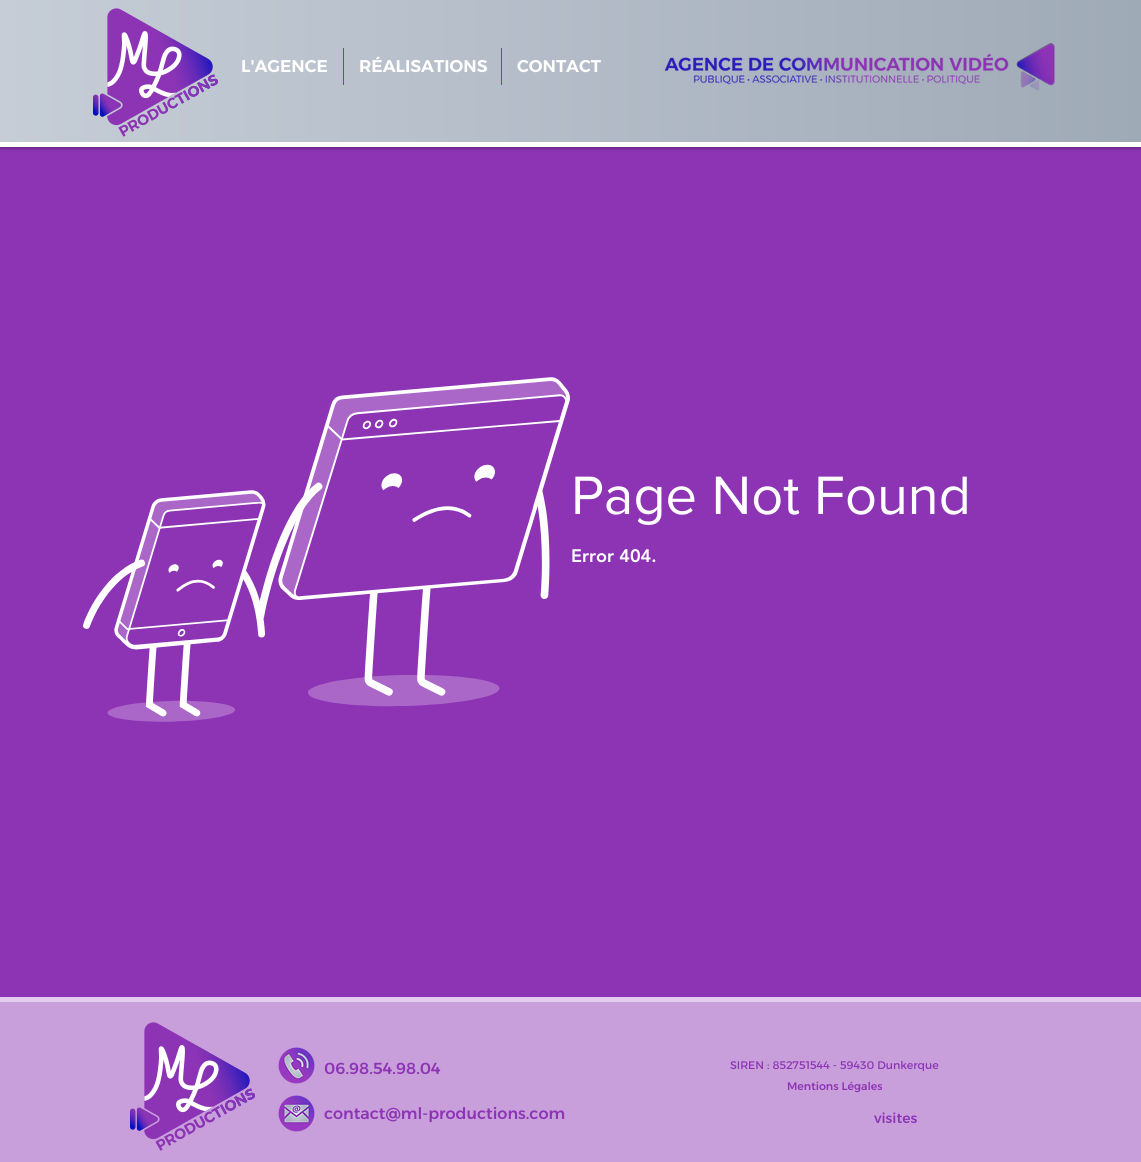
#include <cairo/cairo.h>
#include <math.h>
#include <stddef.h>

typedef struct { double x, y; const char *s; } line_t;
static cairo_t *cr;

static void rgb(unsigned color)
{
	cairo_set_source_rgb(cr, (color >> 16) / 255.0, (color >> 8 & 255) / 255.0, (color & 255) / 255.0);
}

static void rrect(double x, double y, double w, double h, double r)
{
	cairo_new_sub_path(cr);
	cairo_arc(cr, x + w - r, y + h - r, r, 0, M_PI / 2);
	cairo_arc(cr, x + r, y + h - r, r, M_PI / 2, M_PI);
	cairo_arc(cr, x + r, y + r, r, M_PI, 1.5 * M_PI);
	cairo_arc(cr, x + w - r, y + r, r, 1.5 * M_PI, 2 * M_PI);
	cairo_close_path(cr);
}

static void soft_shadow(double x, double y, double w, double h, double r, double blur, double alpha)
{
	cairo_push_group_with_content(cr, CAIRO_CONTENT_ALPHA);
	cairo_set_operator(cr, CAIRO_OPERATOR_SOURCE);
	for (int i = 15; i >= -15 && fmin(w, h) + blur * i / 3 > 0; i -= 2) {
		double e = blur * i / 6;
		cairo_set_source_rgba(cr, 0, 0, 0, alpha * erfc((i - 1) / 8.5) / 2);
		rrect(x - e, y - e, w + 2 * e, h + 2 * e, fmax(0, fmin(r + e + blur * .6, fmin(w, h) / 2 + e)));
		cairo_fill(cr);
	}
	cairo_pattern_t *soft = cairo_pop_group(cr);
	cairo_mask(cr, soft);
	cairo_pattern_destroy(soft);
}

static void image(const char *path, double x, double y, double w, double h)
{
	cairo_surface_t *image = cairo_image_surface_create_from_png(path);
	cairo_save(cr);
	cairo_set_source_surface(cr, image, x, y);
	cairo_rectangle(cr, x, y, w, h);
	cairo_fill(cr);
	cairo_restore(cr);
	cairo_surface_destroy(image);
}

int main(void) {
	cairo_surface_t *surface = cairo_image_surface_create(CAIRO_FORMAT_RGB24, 1141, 1162);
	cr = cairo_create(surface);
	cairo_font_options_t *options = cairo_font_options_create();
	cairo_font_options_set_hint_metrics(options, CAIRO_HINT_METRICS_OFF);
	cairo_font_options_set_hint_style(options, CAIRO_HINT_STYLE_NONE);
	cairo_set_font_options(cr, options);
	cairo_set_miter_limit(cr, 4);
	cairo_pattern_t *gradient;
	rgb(0x8d34b5);
	cairo_paint(cr);
	rgb(0x000000);
	soft_shadow(0, 0, 1141, 147, 0, 2.5, 0.5);
	rgb(0xffffff);
	cairo_rectangle(cr, 0, 142, 1141, 5);
	cairo_fill(cr);
	gradient = cairo_pattern_create_linear(0, 71, 1141, 71);
	cairo_pattern_add_color_stop_rgba(gradient, 0, 0.776, 0.804, 0.843, 1);
	cairo_pattern_add_color_stop_rgba(gradient, 1, 0.624, 0.667, 0.718, 1);
	cairo_set_source(cr, gradient);
	cairo_pattern_destroy(gradient);
	cairo_rectangle(cr, 0, 0, 1141, 142);
	cairo_fill(cr);
	image("img/1.png", 93, 8, 125, 129);
	rgb(0x8d34b5);
	cairo_rectangle(cr, 343, 48, 1, 37);
	cairo_fill(cr);
	cairo_rectangle(cr, 501, 48, 1, 37);
	cairo_fill(cr);
	image("img/2.png", 664, 43, 391, 48);
	image("img/3.png", 83, 377, 487, 345);
	rgb(0xe3cced);
	cairo_rectangle(cr, 0, 997, 1141, 5);
	cairo_fill(cr);
	rgb(0xc89edb);
	cairo_rectangle(cr, 0, 1002, 1141, 160);
	cairo_fill(cr);
	image("img/4.png", 130, 1022, 125, 129);
	image("img/5.png", 278, 1047, 37, 37);
	image("img/6.png", 278, 1095, 37, 37);
	cairo_select_font_face(cr, "Alexandria SemiBold", CAIRO_FONT_SLANT_NORMAL, CAIRO_FONT_WEIGHT_NORMAL);
	cairo_set_font_size(cr, 17);
	rgb(0xffffff);
	{
		static const line_t items[] = {
			{241, 72, "L'AGENCE"},
			{359, 72, "RÉALISATIONS"},
			{517, 72, "CONTACT"},
		};
		for (size_t i = 0; i < sizeof items / sizeof *items; i++) {
			cairo_move_to(cr, items[i].x, items[i].y);
			cairo_show_text(cr, items[i].s);
		}
	}
	cairo_select_font_face(cr, "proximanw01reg", CAIRO_FONT_SLANT_NORMAL, CAIRO_FONT_WEIGHT_NORMAL);
	cairo_set_font_size(cr, 56);
	cairo_move_to(cr, 571, 514);
	cairo_show_text(cr, "Page Not Found");
	cairo_select_font_face(cr, "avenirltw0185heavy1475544 Black", CAIRO_FONT_SLANT_NORMAL, CAIRO_FONT_WEIGHT_NORMAL);
	cairo_set_font_size(cr, 18);
	cairo_move_to(cr, 571, 562);
	cairo_show_text(cr, "Error 404.");
	cairo_select_font_face(cr, "Alexandria Medium", CAIRO_FONT_SLANT_NORMAL, CAIRO_FONT_WEIGHT_NORMAL);
	cairo_set_font_size(cr, 16);
	rgb(0x8d34b5);
	cairo_move_to(cr, 324, 1074);
	cairo_show_text(cr, "06.98.54.98.04");
	cairo_move_to(cr, 324, 1119);
	cairo_show_text(cr, "contact@ml-productions.com");
	cairo_select_font_face(cr, "Alexandria", CAIRO_FONT_SLANT_NORMAL, CAIRO_FONT_WEIGHT_NORMAL);
	cairo_set_font_size(cr, 11);
	cairo_move_to(cr, 730, 1069);
	cairo_show_text(cr, "SIREN : 852751544 - 59430 Dunkerque");
	cairo_select_font_face(cr, "Alexandria Medium", CAIRO_FONT_SLANT_NORMAL, CAIRO_FONT_WEIGHT_NORMAL);
	cairo_move_to(cr, 787, 1090);
	cairo_show_text(cr, "Mentions Légales");
	cairo_set_font_size(cr, 14);
	cairo_move_to(cr, 874, 1123);
	cairo_show_text(cr, "visites");
	cairo_surface_write_to_png(surface, "page.png");
	cairo_font_options_destroy(options);
	cairo_destroy(cr);
	cairo_surface_destroy(surface);
	return 0;
}
